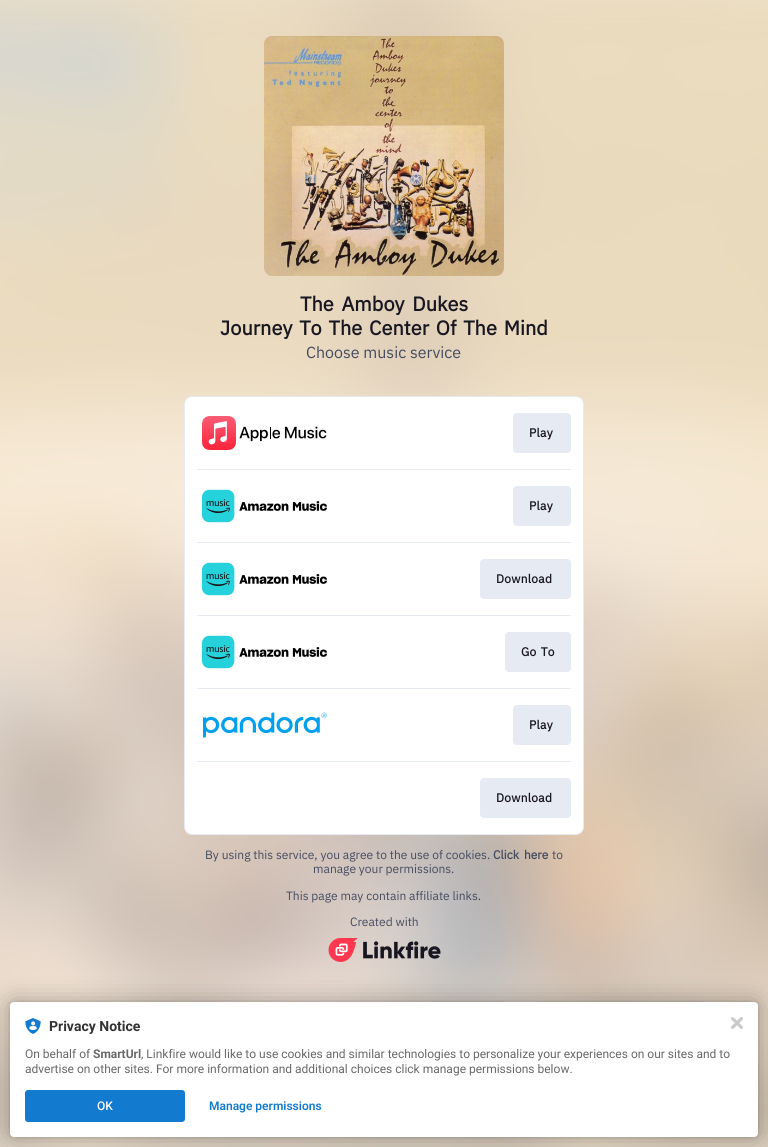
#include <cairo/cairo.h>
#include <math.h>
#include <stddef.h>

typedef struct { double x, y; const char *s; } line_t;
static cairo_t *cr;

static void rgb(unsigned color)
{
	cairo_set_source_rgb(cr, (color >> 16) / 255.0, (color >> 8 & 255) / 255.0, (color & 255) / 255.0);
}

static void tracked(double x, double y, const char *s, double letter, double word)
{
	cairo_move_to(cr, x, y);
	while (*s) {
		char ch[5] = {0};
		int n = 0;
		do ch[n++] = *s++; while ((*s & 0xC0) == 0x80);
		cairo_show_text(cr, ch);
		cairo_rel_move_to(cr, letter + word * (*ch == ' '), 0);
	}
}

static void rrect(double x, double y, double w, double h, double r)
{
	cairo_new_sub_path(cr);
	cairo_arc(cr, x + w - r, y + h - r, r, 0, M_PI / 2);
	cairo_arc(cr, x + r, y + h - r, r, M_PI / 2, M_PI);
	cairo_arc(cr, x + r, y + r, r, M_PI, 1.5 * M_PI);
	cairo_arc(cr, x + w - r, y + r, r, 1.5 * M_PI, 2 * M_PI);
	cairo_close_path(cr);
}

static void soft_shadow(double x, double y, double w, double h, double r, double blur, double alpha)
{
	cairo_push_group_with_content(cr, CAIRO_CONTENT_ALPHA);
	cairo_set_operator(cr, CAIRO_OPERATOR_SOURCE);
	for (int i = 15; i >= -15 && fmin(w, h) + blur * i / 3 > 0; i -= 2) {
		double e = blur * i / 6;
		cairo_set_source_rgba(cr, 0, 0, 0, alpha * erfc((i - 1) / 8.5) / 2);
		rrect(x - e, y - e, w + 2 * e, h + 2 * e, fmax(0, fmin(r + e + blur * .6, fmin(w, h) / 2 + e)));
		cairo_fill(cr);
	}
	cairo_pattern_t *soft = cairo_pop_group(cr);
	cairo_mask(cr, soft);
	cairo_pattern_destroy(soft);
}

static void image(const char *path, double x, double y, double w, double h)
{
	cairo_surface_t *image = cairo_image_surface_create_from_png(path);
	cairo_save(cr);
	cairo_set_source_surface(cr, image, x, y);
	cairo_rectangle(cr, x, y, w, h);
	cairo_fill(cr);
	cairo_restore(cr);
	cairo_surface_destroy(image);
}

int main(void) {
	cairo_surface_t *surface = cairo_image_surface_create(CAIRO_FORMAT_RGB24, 768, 1147);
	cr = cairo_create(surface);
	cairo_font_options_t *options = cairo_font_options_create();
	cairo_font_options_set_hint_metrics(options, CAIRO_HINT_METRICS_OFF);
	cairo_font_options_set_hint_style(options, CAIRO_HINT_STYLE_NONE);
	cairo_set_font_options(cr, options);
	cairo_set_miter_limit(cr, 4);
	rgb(0xffffff);
	cairo_paint(cr);
	image("img/1.png", 0, 0, 768, 1147);
	image("img/2.png", 264, 36, 240, 240);
	rrect(184.5, 396.5, 399, 438, 7.5);
	rgb(0xe6eaf2);
	cairo_set_line_width(cr, 1);
	cairo_stroke(cr);
	rgb(0xffffff);
	rrect(185, 397, 398, 437, 7);
	cairo_fill(cr);
	image("img/3.png", 202, 416, 125, 34);
	rgb(0xe6eaf2);
	rrect(513, 413, 58, 40, 4);
	cairo_fill(cr);
	cairo_rectangle(cr, 197, 469, 374, 1);
	cairo_fill(cr);
	image("img/4.png", 202, 489, 125, 34);
	rrect(513, 486, 58, 40, 4);
	cairo_fill(cr);
	cairo_rectangle(cr, 197, 542, 374, 1);
	cairo_fill(cr);
	image("img/4.png", 202, 562, 125, 34);
	rrect(480, 559, 91, 40, 4);
	cairo_fill(cr);
	cairo_rectangle(cr, 197, 615, 374, 1);
	cairo_fill(cr);
	image("img/4.png", 202, 635, 125, 34);
	rrect(505, 632, 66, 40, 4);
	cairo_fill(cr);
	cairo_rectangle(cr, 197, 688, 374, 1);
	cairo_fill(cr);
	image("img/5.png", 203, 712, 124, 26);
	rrect(513, 705, 58, 40, 4);
	cairo_fill(cr);
	cairo_rectangle(cr, 197, 761, 374, 1);
	cairo_fill(cr);
	rrect(480, 778, 91, 40, 4);
	cairo_fill(cr);
	image("img/6.png", 328, 938, 113, 24);
	rgb(0x000000);
	soft_shadow(10, 1002, 748, 135, 4, 2, 0.12);
	soft_shadow(10, 1002, 748, 135, 4, 12, 0.3);
	rgb(0xffffff);
	rrect(10, 1002, 748, 135, 4);
	cairo_fill(cr);
	image("img/7.png", 25, 1018, 16, 16);
	rgb(0x137bcf);
	rrect(25, 1090, 160, 32, 3);
	cairo_fill(cr);
	image("img/8.png", 731, 1017, 12, 12);
	cairo_select_font_face(cr, "IBM Plex Sans", CAIRO_FONT_SLANT_NORMAL, CAIRO_FONT_WEIGHT_BOLD);
	cairo_set_font_size(cr, 20);
	rgb(0x181721);
	tracked(300, 311, "The Amboy Dukes", 0, 3);
	tracked(220, 335, "Journey To The Center Of The Mind", 0, 2);
	cairo_select_font_face(cr, "IBM Plex Sans", CAIRO_FONT_SLANT_NORMAL, CAIRO_FONT_WEIGHT_NORMAL);
	cairo_set_font_size(cr, 16);
	rgb(0x454b5f);
	cairo_move_to(cr, 306, 358);
	cairo_show_text(cr, "Choose music service");
	cairo_select_font_face(cr, "IBM Plex Sans", CAIRO_FONT_SLANT_NORMAL, CAIRO_FONT_WEIGHT_BOLD);
	cairo_set_font_size(cr, 12);
	rgb(0x181721);
	{
		static const line_t items[] = {
			{529, 437, "Play"},
			{529, 510, "Play"},
			{496, 583, "Download"},
		};
		for (size_t i = 0; i < sizeof items / sizeof *items; i++) {
			tracked(items[i].x, items[i].y, items[i].s, 0.25, 0);
		}
	}
	tracked(521, 656, "Go To", 0.25, 1);
	tracked(529, 729, "Play", 0.25, 0);
	tracked(496, 802, "Download", 0.25, 0);
	cairo_select_font_face(cr, "IBM Plex Sans", CAIRO_FONT_SLANT_NORMAL, CAIRO_FONT_WEIGHT_NORMAL);
	rgb(0x454b5f);
	cairo_move_to(cr, 205, 859);
	cairo_show_text(cr, "By using this service, you agree to the use of cookies.");
	cairo_select_font_face(cr, "IBM Plex Sans", CAIRO_FONT_SLANT_NORMAL, CAIRO_FONT_WEIGHT_BOLD);
	tracked(493, 859, "Click here", 0, 2);
	cairo_select_font_face(cr, "IBM Plex Sans", CAIRO_FONT_SLANT_NORMAL, CAIRO_FONT_WEIGHT_NORMAL);
	{
		static const line_t items[] = {
			{552, 859, "to"},
			{313, 873, "manage your permissions."},
			{286, 900, "This page may contain affiliate links."},
			{350, 926, "Created with"},
		};
		for (size_t i = 0; i < sizeof items / sizeof *items; i++) {
			cairo_move_to(cr, items[i].x, items[i].y);
			cairo_show_text(cr, items[i].s);
		}
	}
	cairo_select_font_face(cr, "Roboto", CAIRO_FONT_SLANT_NORMAL, CAIRO_FONT_WEIGHT_BOLD);
	cairo_set_font_size(cr, 14);
	rgb(0x323232);
	cairo_move_to(cr, 49, 1031);
	cairo_show_text(cr, "Privacy Notice");
	cairo_select_font_face(cr, "Roboto", CAIRO_FONT_SLANT_NORMAL, CAIRO_FONT_WEIGHT_NORMAL);
	cairo_set_font_size(cr, 12);
	rgb(0x686868);
	cairo_move_to(cr, 25, 1058);
	cairo_show_text(cr, "On behalf of");
	cairo_select_font_face(cr, "Roboto", CAIRO_FONT_SLANT_NORMAL, CAIRO_FONT_WEIGHT_BOLD);
	cairo_move_to(cr, 93, 1058);
	cairo_show_text(cr, "SmartUrl");
	cairo_select_font_face(cr, "Roboto", CAIRO_FONT_SLANT_NORMAL, CAIRO_FONT_WEIGHT_NORMAL);
	cairo_move_to(cr, 141, 1058);
	cairo_show_text(cr, ", Linkfire would like to use cookies and similar technologies to personalize your experiences on our sites and to");
	cairo_move_to(cr, 25, 1073);
	cairo_show_text(cr, "advertise on other sites. For more information and additional choices click manage permissions below.");
	cairo_select_font_face(cr, "Roboto Medium", CAIRO_FONT_SLANT_NORMAL, CAIRO_FONT_WEIGHT_NORMAL);
	rgb(0xffffff);
	cairo_move_to(cr, 97, 1110);
	cairo_show_text(cr, "OK");
	cairo_select_font_face(cr, "Roboto SemiBold", CAIRO_FONT_SLANT_NORMAL, CAIRO_FONT_WEIGHT_NORMAL);
	rgb(0x137bcf);
	cairo_move_to(cr, 209, 1110);
	cairo_show_text(cr, "Manage permissions");
	cairo_surface_write_to_png(surface, "page.png");
	cairo_font_options_destroy(options);
	cairo_destroy(cr);
	cairo_surface_destroy(surface);
	return 0;
}
